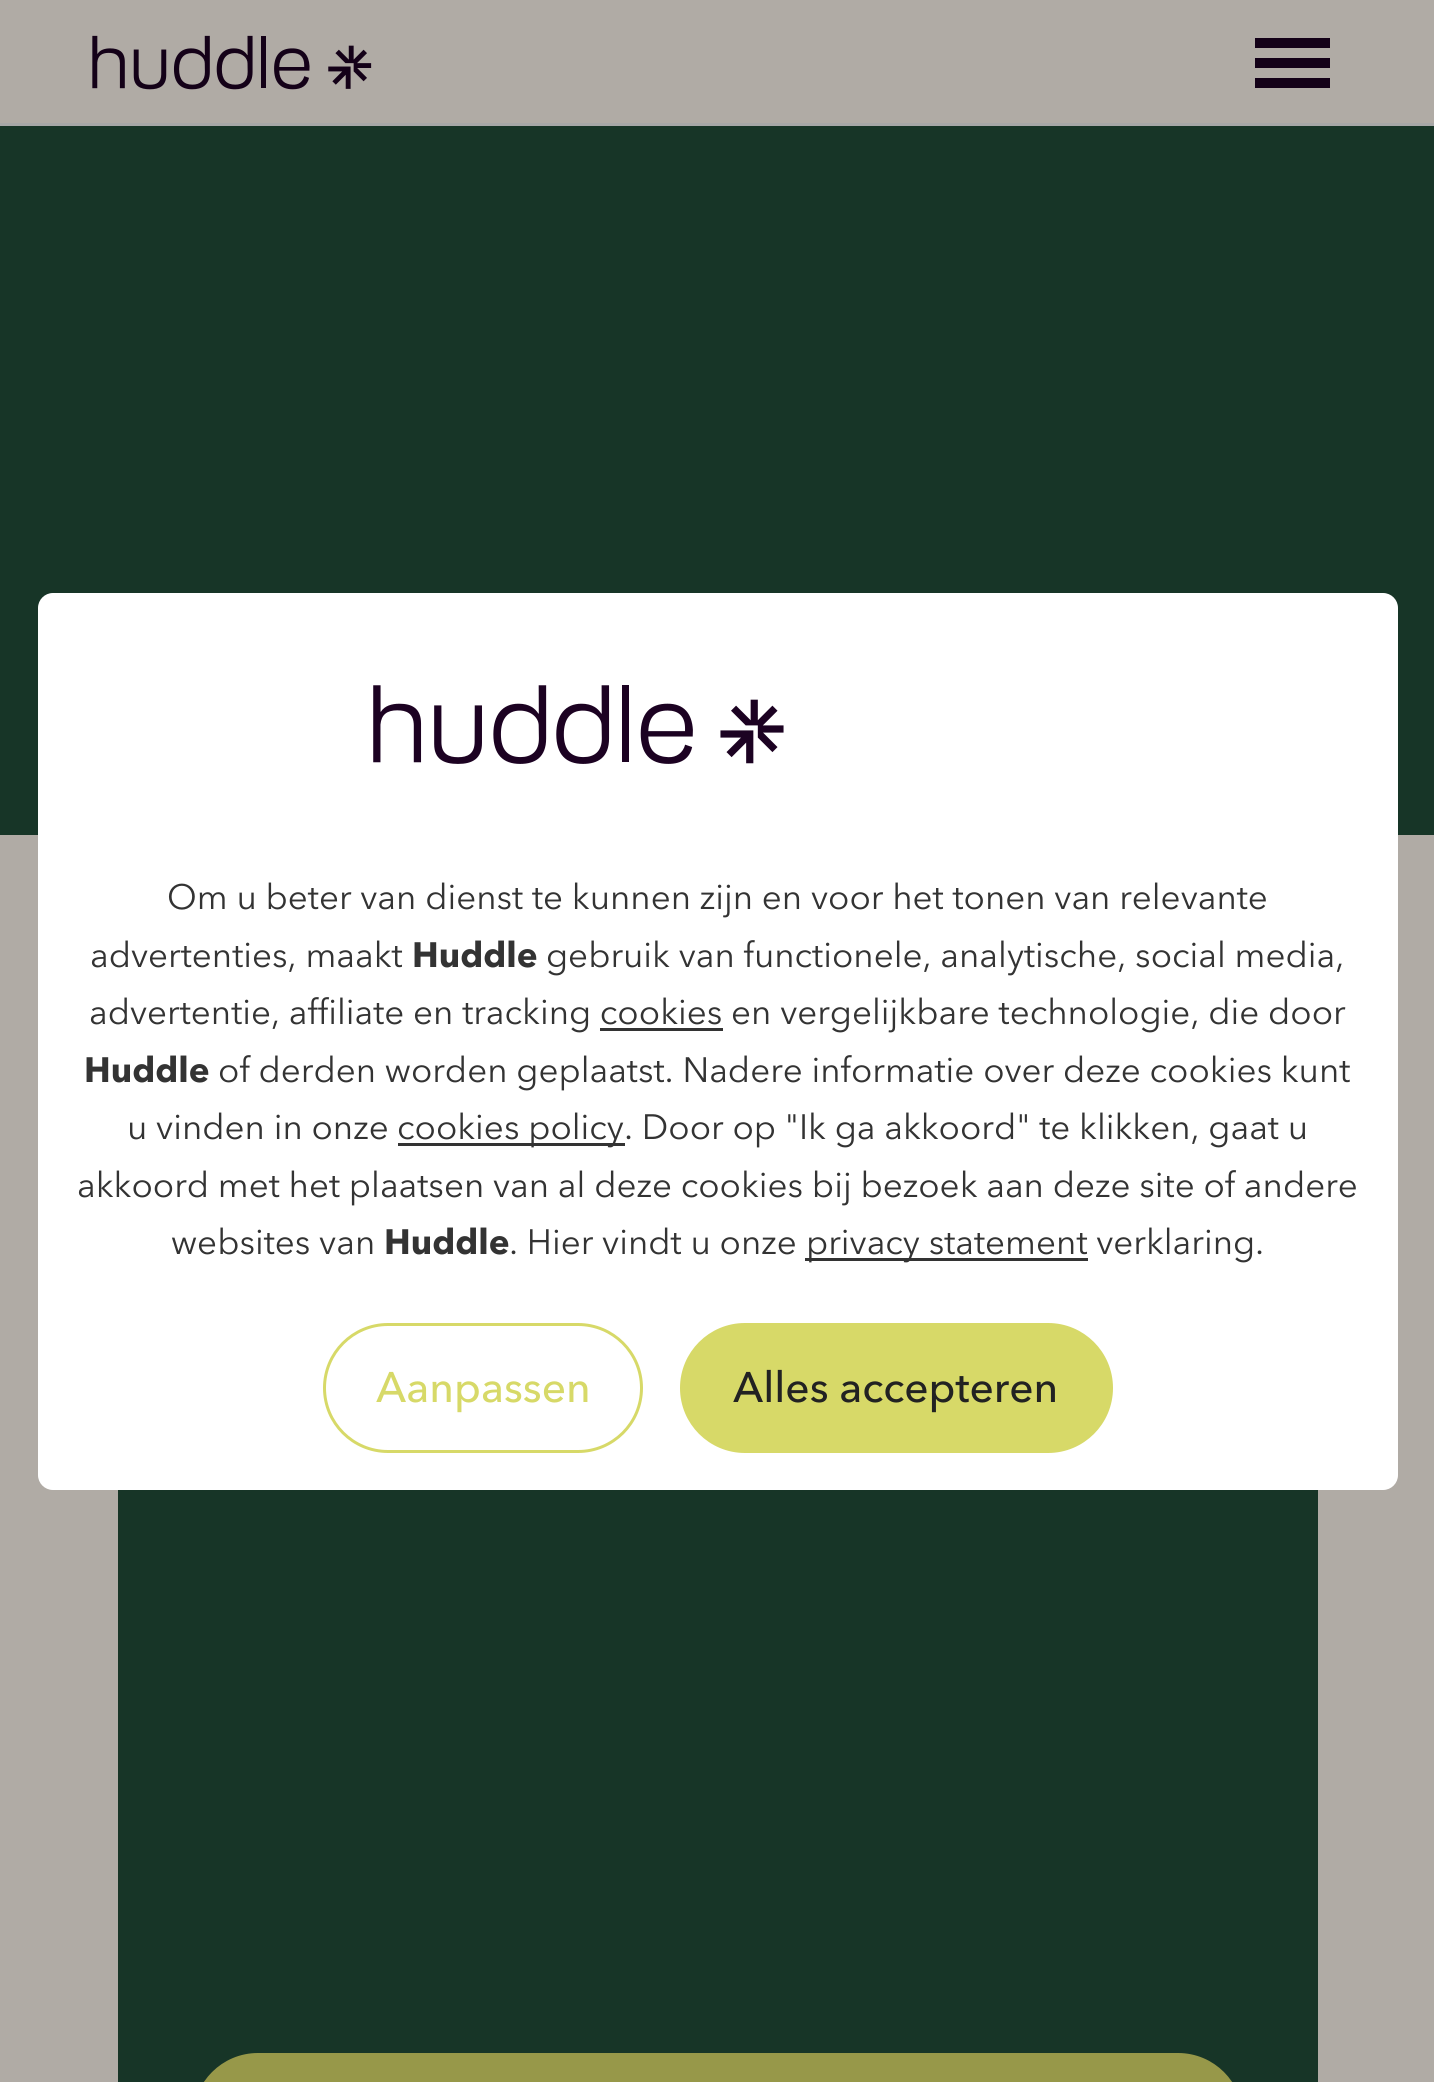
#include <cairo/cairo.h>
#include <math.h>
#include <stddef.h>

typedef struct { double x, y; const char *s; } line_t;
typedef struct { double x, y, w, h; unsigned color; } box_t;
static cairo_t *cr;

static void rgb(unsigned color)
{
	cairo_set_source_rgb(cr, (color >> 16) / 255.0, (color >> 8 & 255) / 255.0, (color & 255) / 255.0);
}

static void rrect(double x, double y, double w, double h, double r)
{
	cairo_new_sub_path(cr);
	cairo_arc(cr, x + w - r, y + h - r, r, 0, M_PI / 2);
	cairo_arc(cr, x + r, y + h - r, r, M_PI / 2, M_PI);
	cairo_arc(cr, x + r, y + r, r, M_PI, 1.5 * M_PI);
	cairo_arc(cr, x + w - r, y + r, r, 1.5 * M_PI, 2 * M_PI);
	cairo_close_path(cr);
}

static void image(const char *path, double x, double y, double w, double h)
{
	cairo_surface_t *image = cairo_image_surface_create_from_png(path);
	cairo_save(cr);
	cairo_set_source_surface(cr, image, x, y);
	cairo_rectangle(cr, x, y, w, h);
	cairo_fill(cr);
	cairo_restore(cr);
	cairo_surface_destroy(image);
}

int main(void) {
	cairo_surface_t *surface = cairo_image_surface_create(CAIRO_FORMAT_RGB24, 1434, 2082);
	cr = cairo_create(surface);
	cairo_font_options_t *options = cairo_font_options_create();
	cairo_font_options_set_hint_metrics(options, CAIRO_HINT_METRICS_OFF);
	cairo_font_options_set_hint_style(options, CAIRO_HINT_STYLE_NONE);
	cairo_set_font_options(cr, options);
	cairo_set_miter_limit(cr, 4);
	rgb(0x173527);
	cairo_paint(cr);
	rgb(0xb0aba5);
	cairo_rectangle(cr, 0, 0, 1434, 123);
	cairo_fill(cr);
	rgb(0xa7a7a7);
	cairo_rectangle(cr, 0, 123, 1434, 3);
	cairo_fill(cr);
	image("img/1.png", 92, 35, 280, 55);
	{
		static const box_t items[] = {
			{1255, 58, 75, 10, 0x140118},
			{1255, 38, 75, 10, 0x140118},
			{1255, 78, 75, 10, 0x140118},
			{0, 835, 1434, 1247, 0xb0aba5},
			{118, 1490, 1200, 592, 0x173527},
		};
		for (size_t i = 0; i < sizeof items / sizeof *items; i++) {
			rgb(items[i].color);
			cairo_rectangle(cr, items[i].x, items[i].y, items[i].w, items[i].h);
			cairo_fill(cr);
		}
	}
	rgb(0x979849);
	rrect(194.5, 2054.5, 1047, 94, 63.5);
	cairo_fill_preserve(cr);
	cairo_set_line_width(cr, 3);
	cairo_stroke(cr);
	rgb(0xffffff);
	rrect(38, 593, 1360, 897, 15);
	cairo_fill(cr);
	image("img/2.png", 373, 685, 411, 79);
	{
		static const box_t items[] = {
			{600, 1028, 123, 3, 0x333333},
			{398, 1143, 227, 3, 0x333333},
			{805, 1258, 283, 3, 0x333333},
		};
		for (size_t i = 0; i < sizeof items / sizeof *items; i++) {
			rgb(items[i].color);
			cairo_rectangle(cr, items[i].x, items[i].y, items[i].w, items[i].h);
			cairo_fill(cr);
		}
	}
	rrect(324.5, 1324.5, 317, 127, 63.5);
	rgb(0xd7d968);
	cairo_stroke(cr);
	rrect(681.5, 1324.5, 430, 127, 63.5);
	cairo_fill_preserve(cr);
	cairo_stroke(cr);
	cairo_select_font_face(cr, "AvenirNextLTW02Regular", CAIRO_FONT_SLANT_NORMAL, CAIRO_FONT_WEIGHT_NORMAL);
	cairo_set_font_size(cr, 35);
	rgb(0x333333);
	cairo_move_to(cr, 167, 909);
	cairo_show_text(cr, "Om u beter van dienst te kunnen zijn en voor het tonen van relevante");
	cairo_move_to(cr, 90, 967);
	cairo_show_text(cr, "advertenties, maakt");
	cairo_select_font_face(cr, "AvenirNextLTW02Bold", CAIRO_FONT_SLANT_NORMAL, CAIRO_FONT_WEIGHT_BOLD);
	cairo_move_to(cr, 412, 967);
	cairo_show_text(cr, "Huddle");
	cairo_select_font_face(cr, "AvenirNextLTW02Regular", CAIRO_FONT_SLANT_NORMAL, CAIRO_FONT_WEIGHT_NORMAL);
	cairo_move_to(cr, 546, 967);
	cairo_show_text(cr, "gebruik van functionele, analytische, social media,");
	cairo_move_to(cr, 89, 1024);
	cairo_show_text(cr, "advertentie, affiliate en tracking cookies en vergelijkbare technologie, die door");
	cairo_select_font_face(cr, "AvenirNextLTW02Bold", CAIRO_FONT_SLANT_NORMAL, CAIRO_FONT_WEIGHT_BOLD);
	cairo_move_to(cr, 84, 1082);
	cairo_show_text(cr, "Huddle");
	cairo_select_font_face(cr, "AvenirNextLTW02Regular", CAIRO_FONT_SLANT_NORMAL, CAIRO_FONT_WEIGHT_NORMAL);
	{
		static const line_t items[] = {
			{218, 1082, "of derden worden geplaatst. Nadere informatie over deze cookies kunt"},
			{127, 1139, "u vinden in onze"},
			{397, 1139, "cookies policy. Door op \"Ik ga akkoord\" te klikken, gaat u"},
			{77, 1197, "akkoord met het plaatsen van al deze cookies bij bezoek aan deze site of andere"},
			{171, 1254, "websites van"},
		};
		for (size_t i = 0; i < sizeof items / sizeof *items; i++) {
			cairo_move_to(cr, items[i].x, items[i].y);
			cairo_show_text(cr, items[i].s);
		}
	}
	cairo_select_font_face(cr, "AvenirNextLTW02Bold", CAIRO_FONT_SLANT_NORMAL, CAIRO_FONT_WEIGHT_BOLD);
	cairo_move_to(cr, 384, 1254);
	cairo_show_text(cr, "Huddle");
	cairo_select_font_face(cr, "AvenirNextLTW02Regular", CAIRO_FONT_SLANT_NORMAL, CAIRO_FONT_WEIGHT_NORMAL);
	cairo_move_to(cr, 509, 1254);
	cairo_show_text(cr, ". Hier vindt u onze");
	cairo_move_to(cr, 806, 1254);
	cairo_show_text(cr, "privacy statement verklaring.");
	cairo_select_font_face(cr, "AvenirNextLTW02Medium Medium", CAIRO_FONT_SLANT_NORMAL, CAIRO_FONT_WEIGHT_NORMAL);
	cairo_set_font_size(cr, 42.5);
	rgb(0xd7d968);
	cairo_move_to(cr, 376, 1402);
	cairo_show_text(cr, "Aanpassen");
	rgb(0x222222);
	cairo_move_to(cr, 733, 1402);
	cairo_show_text(cr, "Alles accepteren");
	cairo_surface_write_to_png(surface, "page.png");
	cairo_font_options_destroy(options);
	cairo_destroy(cr);
	cairo_surface_destroy(surface);
	return 0;
}
